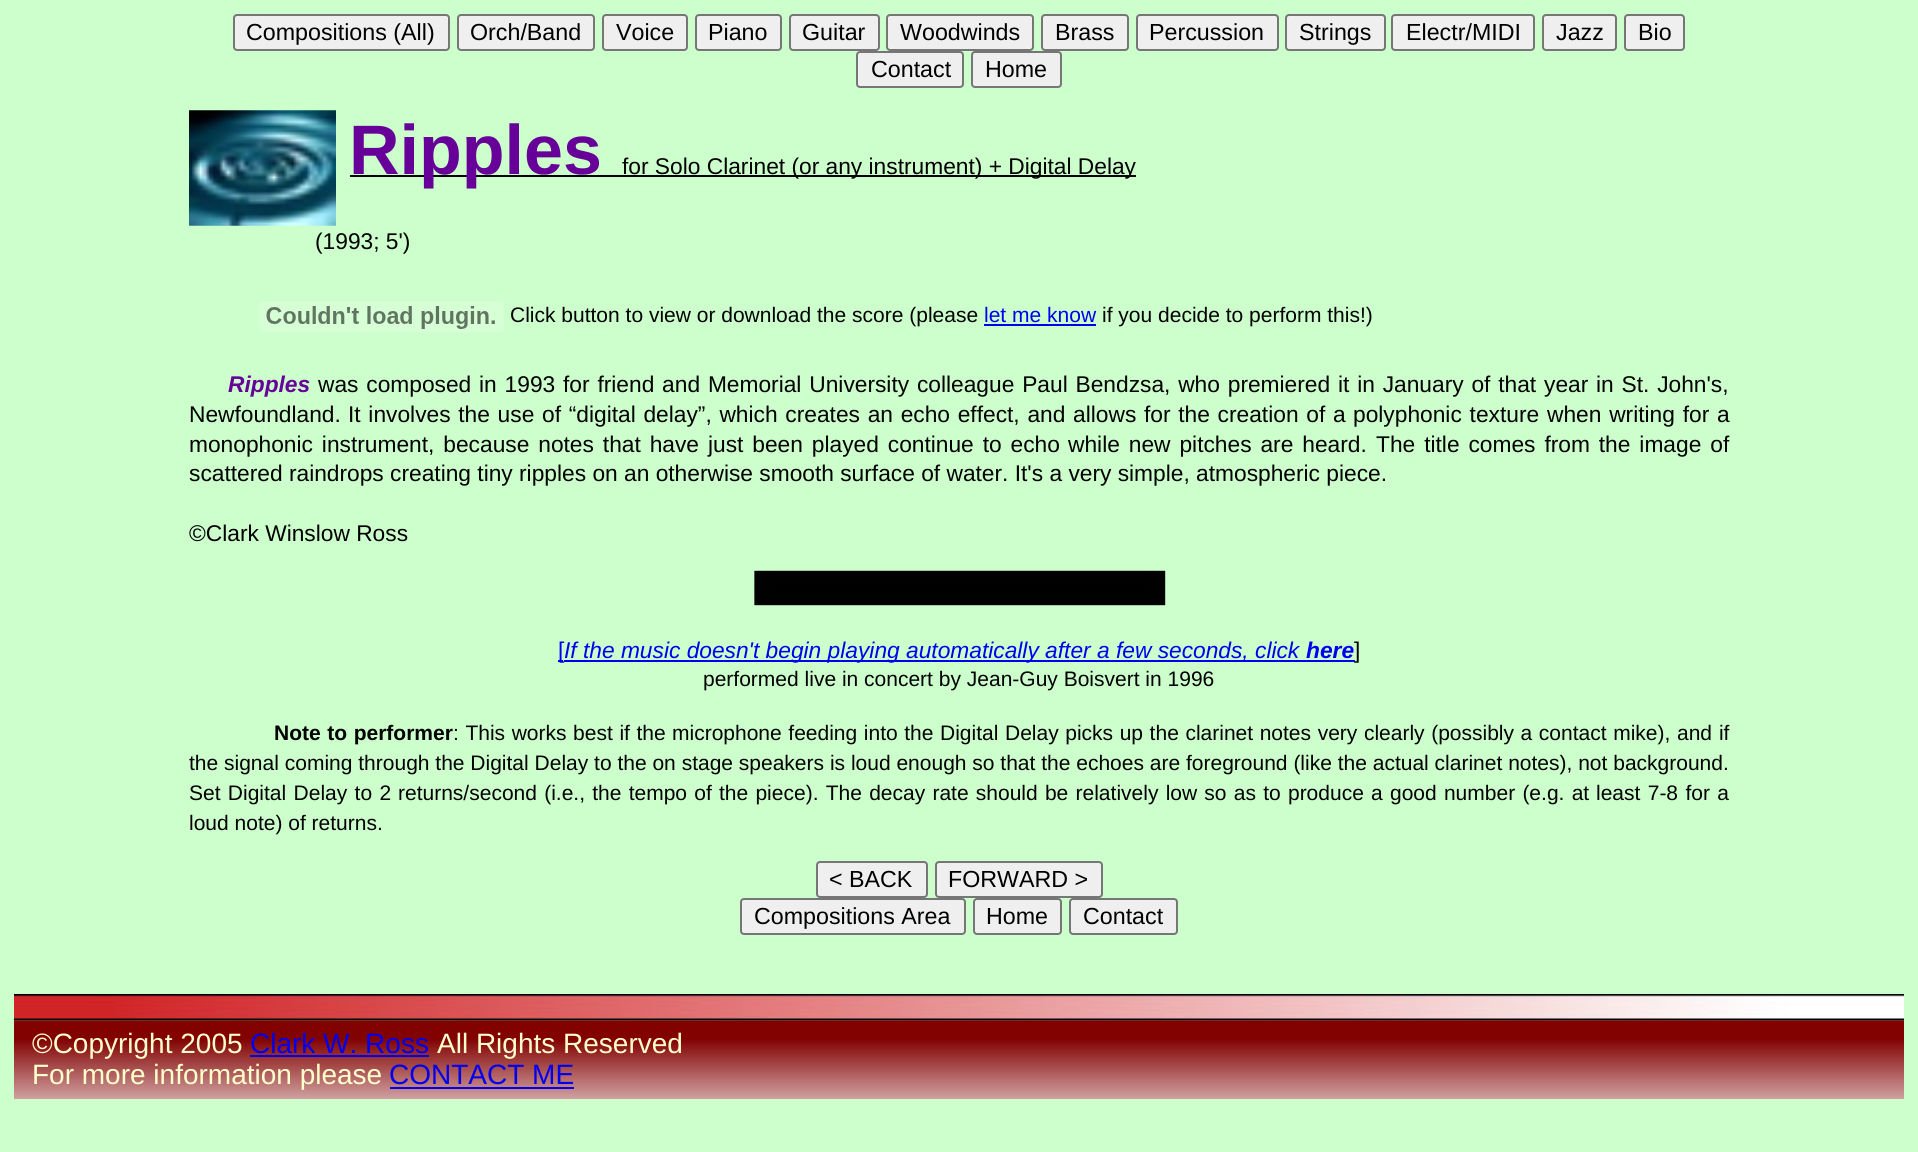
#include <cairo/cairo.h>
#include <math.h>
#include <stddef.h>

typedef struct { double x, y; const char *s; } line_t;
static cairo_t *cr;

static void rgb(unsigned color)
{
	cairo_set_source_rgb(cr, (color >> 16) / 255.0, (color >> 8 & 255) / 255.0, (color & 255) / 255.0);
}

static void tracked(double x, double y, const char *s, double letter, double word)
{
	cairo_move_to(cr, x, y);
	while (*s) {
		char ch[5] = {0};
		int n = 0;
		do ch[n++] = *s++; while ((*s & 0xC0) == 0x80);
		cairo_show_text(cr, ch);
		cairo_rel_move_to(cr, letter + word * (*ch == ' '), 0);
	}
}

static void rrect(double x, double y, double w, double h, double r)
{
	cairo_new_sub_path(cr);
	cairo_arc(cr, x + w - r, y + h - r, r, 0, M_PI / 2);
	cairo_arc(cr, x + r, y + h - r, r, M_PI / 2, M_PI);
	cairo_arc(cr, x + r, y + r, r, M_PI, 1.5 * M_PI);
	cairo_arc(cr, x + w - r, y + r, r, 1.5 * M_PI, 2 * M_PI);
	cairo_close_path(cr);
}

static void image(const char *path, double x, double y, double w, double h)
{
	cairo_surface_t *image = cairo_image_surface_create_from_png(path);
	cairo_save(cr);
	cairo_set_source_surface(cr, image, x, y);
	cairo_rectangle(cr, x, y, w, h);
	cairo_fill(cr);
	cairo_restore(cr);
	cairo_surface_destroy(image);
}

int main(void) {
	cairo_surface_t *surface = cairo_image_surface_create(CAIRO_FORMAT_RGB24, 1918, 1152);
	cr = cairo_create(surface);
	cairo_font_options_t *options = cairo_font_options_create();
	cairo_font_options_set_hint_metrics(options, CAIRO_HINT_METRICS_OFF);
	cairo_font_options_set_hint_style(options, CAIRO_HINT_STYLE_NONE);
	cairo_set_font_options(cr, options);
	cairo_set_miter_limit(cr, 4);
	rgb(0xccffcc);
	cairo_paint(cr);
	rgb(0xefefef);
	rrect(234, 15, 215, 35, 3);
	cairo_fill_preserve(cr);
	rgb(0x767676);
	cairo_stroke(cr);
	rgb(0xefefef);
	rrect(458, 15, 136, 35, 3);
	cairo_fill_preserve(cr);
	rgb(0x767676);
	cairo_stroke(cr);
	rgb(0xefefef);
	rrect(603, 15, 84, 35, 3);
	cairo_fill_preserve(cr);
	rgb(0x767676);
	cairo_stroke(cr);
	rgb(0xefefef);
	rrect(696, 15, 85, 35, 3);
	cairo_fill_preserve(cr);
	rgb(0x767676);
	cairo_stroke(cr);
	rgb(0xefefef);
	rrect(790, 15, 89, 35, 3);
	cairo_fill_preserve(cr);
	rgb(0x767676);
	cairo_stroke(cr);
	rgb(0xefefef);
	rrect(887, 15, 146, 35, 3);
	cairo_fill_preserve(cr);
	rgb(0x767676);
	cairo_stroke(cr);
	rgb(0xefefef);
	rrect(1042, 15, 86, 35, 3);
	cairo_fill_preserve(cr);
	rgb(0x767676);
	cairo_stroke(cr);
	rgb(0xefefef);
	rrect(1137, 15, 141, 35, 3);
	cairo_fill_preserve(cr);
	rgb(0x767676);
	cairo_stroke(cr);
	rgb(0xefefef);
	rrect(1286, 15, 99, 35, 3);
	cairo_fill_preserve(cr);
	rgb(0x767676);
	cairo_stroke(cr);
	rgb(0xefefef);
	rrect(1392, 15, 142, 35, 3);
	cairo_fill_preserve(cr);
	rgb(0x767676);
	cairo_stroke(cr);
	rgb(0xefefef);
	rrect(1543, 15, 73, 35, 3);
	cairo_fill_preserve(cr);
	rgb(0x767676);
	cairo_stroke(cr);
	rgb(0xefefef);
	rrect(1625, 15, 59, 35, 3);
	cairo_fill_preserve(cr);
	rgb(0x767676);
	cairo_stroke(cr);
	rgb(0xefefef);
	rrect(857, 52, 106, 35, 3);
	cairo_fill_preserve(cr);
	rgb(0x767676);
	cairo_stroke(cr);
	rgb(0xefefef);
	rrect(972, 52, 89, 35, 3);
	cairo_fill_preserve(cr);
	rgb(0x767676);
	cairo_stroke(cr);
	image("img/1.png", 189, 110, 147, 116);
	rgb(0x000000);
	cairo_rectangle(cr, 350, 175, 786, 2);
	cairo_fill(cr);
	image("img/2.png", 259, 301, 245, 32);
	rgb(0x0000ee);
	cairo_rectangle(cr, 984, 324, 112, 2);
	cairo_fill(cr);
	image("img/3.png", 754, 570, 412, 36);
	cairo_rectangle(cr, 558, 660, 5, 2);
	cairo_fill(cr);
	cairo_rectangle(cr, 564, 660, 791, 2);
	cairo_fill(cr);
	rgb(0xefefef);
	rrect(817, 862, 110, 35, 3);
	cairo_fill_preserve(cr);
	rgb(0x767676);
	cairo_stroke(cr);
	rgb(0xefefef);
	rrect(936, 862, 166, 35, 3);
	cairo_fill_preserve(cr);
	rgb(0x767676);
	cairo_stroke(cr);
	rgb(0xefefef);
	rrect(741, 899, 224, 35, 3);
	cairo_fill_preserve(cr);
	rgb(0x767676);
	cairo_stroke(cr);
	rgb(0xefefef);
	rrect(974, 899, 87, 35, 3);
	cairo_fill_preserve(cr);
	rgb(0x767676);
	cairo_stroke(cr);
	rgb(0xefefef);
	rrect(1070, 899, 107, 35, 3);
	cairo_fill_preserve(cr);
	rgb(0x767676);
	cairo_stroke(cr);
	image("img/5.png", 14, 1020, 1890, 79);
	image("img/4.png", 14, 994, 1890, 27);
	rgb(0x0000ee);
	cairo_rectangle(cr, 250, 1055, 179, 2);
	cairo_fill(cr);
	cairo_rectangle(cr, 390, 1087, 184, 2);
	cairo_fill(cr);
	cairo_select_font_face(cr, "Liberation Sans", CAIRO_FONT_SLANT_NORMAL, CAIRO_FONT_WEIGHT_NORMAL);
	cairo_set_font_size(cr, 23.25);
	rgb(0x000000);
	{
		static const line_t items[] = {
			{246, 40, "Compositions (All)"},
			{470, 40, "Orch/Band"},
			{616, 40, "Voice"},
			{708, 40, "Piano"},
			{802, 40, "Guitar"},
			{900, 40, "Woodwinds"},
			{1055, 40, "Brass"},
			{1149, 40, "Percussion"},
			{1299, 40, "Strings"},
			{1406, 40, "Electr/MIDI"},
			{1556, 40, "Jazz"},
			{1638, 40, "Bio"},
			{871, 77, "Contact"},
			{985, 77, "Home"},
		};
		for (size_t i = 0; i < sizeof items / sizeof *items; i++) {
			cairo_move_to(cr, items[i].x, items[i].y);
			cairo_show_text(cr, items[i].s);
		}
	}
	cairo_select_font_face(cr, "Liberation Sans", CAIRO_FONT_SLANT_NORMAL, CAIRO_FONT_WEIGHT_BOLD);
	cairo_set_font_size(cr, 70);
	rgb(0x660099);
	cairo_move_to(cr, 349, 174);
	cairo_show_text(cr, "Ripples");
	cairo_select_font_face(cr, "Liberation Sans", CAIRO_FONT_SLANT_NORMAL, CAIRO_FONT_WEIGHT_NORMAL);
	cairo_set_font_size(cr, 22.75);
	rgb(0x000000);
	cairo_move_to(cr, 622, 174);
	cairo_show_text(cr, "for Solo Clarinet (or any instrument) + Digital Delay");
	cairo_move_to(cr, 315, 249);
	cairo_show_text(cr, "(1993; 5')");
	cairo_set_font_size(cr, 21);
	cairo_move_to(cr, 510, 322);
	cairo_show_text(cr, "Click button to view or download the score (please");
	rgb(0x0000ee);
	cairo_move_to(cr, 984, 322);
	cairo_show_text(cr, "let me know");
	rgb(0x000000);
	cairo_move_to(cr, 1102, 322);
	cairo_show_text(cr, "if you decide to perform this!)");
	cairo_select_font_face(cr, "Liberation Sans", CAIRO_FONT_SLANT_ITALIC, CAIRO_FONT_WEIGHT_BOLD);
	cairo_set_font_size(cr, 22.75);
	rgb(0x660099);
	cairo_move_to(cr, 228, 392);
	cairo_show_text(cr, "Ripples");
	cairo_select_font_face(cr, "Liberation Sans", CAIRO_FONT_SLANT_NORMAL, CAIRO_FONT_WEIGHT_NORMAL);
	rgb(0x000000);
	tracked(318, 392, "was composed in 1993 for friend and Memorial University colleague Paul Bendzsa, who premiered it in January of that year", 0, 1.5);
	tracked(1596, 392, "in St. John's,", 0, 1.5);
	cairo_move_to(cr, 189, 422);
	cairo_show_text(cr, "Newfoundland.");
	tracked(348, 422, "It involves the use of “digital delay”, which creates an echo effect, and allows for the creation of a", 0, 1.4);
	tracked(1353, 422, "polyphonic texture when writing for a", 0, 1.5);
	{
		static const line_t items[] = {
			{189, 452, "monophonic instrument, because notes that have just been played continue to echo"},
			{1068, 452, "while new pitches are heard."},
			{1376, 452, "The title comes from the image of"},
		};
		for (size_t i = 0; i < sizeof items / sizeof *items; i++) {
			tracked(items[i].x, items[i].y, items[i].s, 0, 2.6);
		}
	}
	cairo_move_to(cr, 189, 481);
	cairo_show_text(cr, "scattered raindrops creating tiny ripples on an otherwise smooth surface of water. It's a very simple, atmospheric piece.");
	cairo_move_to(cr, 189, 541);
	cairo_show_text(cr, "©Clark Winslow Ross");
	rgb(0x0000ee);
	cairo_move_to(cr, 558, 658);
	cairo_show_text(cr, "[");
	cairo_select_font_face(cr, "Liberation Sans", CAIRO_FONT_SLANT_ITALIC, CAIRO_FONT_WEIGHT_NORMAL);
	cairo_move_to(cr, 564, 658);
	cairo_show_text(cr, "If the music doesn't begin playing automatically after a few seconds, click");
	cairo_select_font_face(cr, "Liberation Sans", CAIRO_FONT_SLANT_ITALIC, CAIRO_FONT_WEIGHT_BOLD);
	cairo_move_to(cr, 1306, 658);
	cairo_show_text(cr, "here");
	cairo_select_font_face(cr, "Liberation Sans", CAIRO_FONT_SLANT_NORMAL, CAIRO_FONT_WEIGHT_NORMAL);
	rgb(0x000000);
	cairo_move_to(cr, 1354, 658);
	cairo_show_text(cr, "]");
	cairo_set_font_size(cr, 21);
	cairo_move_to(cr, 703, 686);
	cairo_show_text(cr, "performed live in concert by Jean-Guy Boisvert in 1996");
	cairo_select_font_face(cr, "Liberation Sans", CAIRO_FONT_SLANT_NORMAL, CAIRO_FONT_WEIGHT_BOLD);
	tracked(274, 740, "Note to performer", 0, 0.75);
	cairo_select_font_face(cr, "Liberation Sans", CAIRO_FONT_SLANT_NORMAL, CAIRO_FONT_WEIGHT_NORMAL);
	tracked(453, 740, ": This works best if the", 0, 0.75);
	tracked(672, 740, "microphone feeding into the Digital Delay picks up the clarinet notes very clearly (possibly a contact mike),", 0, 0.75);
	tracked(1677, 740, "and if", 0, 1);
	cairo_move_to(cr, 189, 770);
	cairo_show_text(cr, "the signal coming through the Digital Delay to the on stage speakers is loud enough so that the echoes are foreground (like the actual clarinet notes), not background.");
	tracked(189, 800, "Set Digital Delay to 2", 0, 1.5);
	tracked(398, 800, "returns/second (i.e., the tempo of the piece). The decay rate should be relatively low so as to produce a good number (e.g. at", 0, 1.4);
	tracked(1596, 800, "least 7-8 for a", 0, 1.5);
	cairo_move_to(cr, 189, 830);
	cairo_show_text(cr, "loud note) of returns.");
	cairo_set_font_size(cr, 23.25);
	{
		static const line_t items[] = {
			{829, 887, "< BACK"},
			{948, 887, "FORWARD >"},
			{754, 924, "Compositions Area"},
			{986, 924, "Home"},
			{1083, 924, "Contact"},
		};
		for (size_t i = 0; i < sizeof items / sizeof *items; i++) {
			cairo_move_to(cr, items[i].x, items[i].y);
			cairo_show_text(cr, items[i].s);
		}
	}
	cairo_set_font_size(cr, 28);
	rgb(0xffffcc);
	cairo_move_to(cr, 32, 1053);
	cairo_show_text(cr, "©Copyright 2005");
	rgb(0x0000ee);
	cairo_move_to(cr, 250, 1053);
	cairo_show_text(cr, "Clark W. Ross");
	rgb(0xffffcc);
	cairo_move_to(cr, 437, 1053);
	cairo_show_text(cr, "All Rights Reserved");
	cairo_move_to(cr, 32, 1084);
	cairo_show_text(cr, "For more information please");
	rgb(0x0000ee);
	cairo_move_to(cr, 389, 1084);
	cairo_show_text(cr, "CONTACT ME");
	cairo_surface_write_to_png(surface, "page.png");
	cairo_font_options_destroy(options);
	cairo_destroy(cr);
	cairo_surface_destroy(surface);
	return 0;
}
